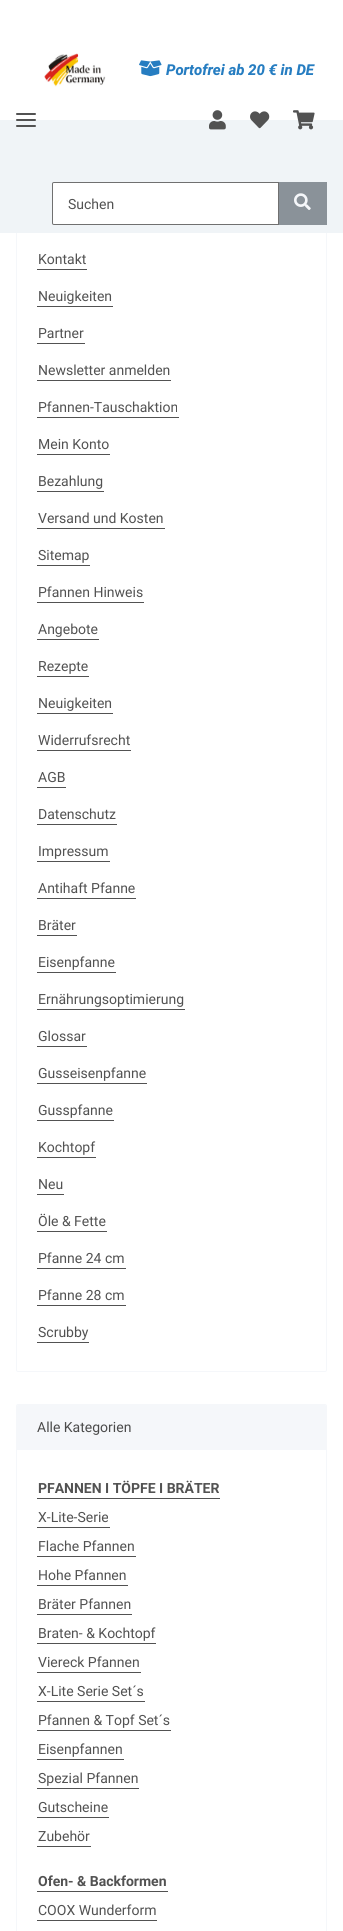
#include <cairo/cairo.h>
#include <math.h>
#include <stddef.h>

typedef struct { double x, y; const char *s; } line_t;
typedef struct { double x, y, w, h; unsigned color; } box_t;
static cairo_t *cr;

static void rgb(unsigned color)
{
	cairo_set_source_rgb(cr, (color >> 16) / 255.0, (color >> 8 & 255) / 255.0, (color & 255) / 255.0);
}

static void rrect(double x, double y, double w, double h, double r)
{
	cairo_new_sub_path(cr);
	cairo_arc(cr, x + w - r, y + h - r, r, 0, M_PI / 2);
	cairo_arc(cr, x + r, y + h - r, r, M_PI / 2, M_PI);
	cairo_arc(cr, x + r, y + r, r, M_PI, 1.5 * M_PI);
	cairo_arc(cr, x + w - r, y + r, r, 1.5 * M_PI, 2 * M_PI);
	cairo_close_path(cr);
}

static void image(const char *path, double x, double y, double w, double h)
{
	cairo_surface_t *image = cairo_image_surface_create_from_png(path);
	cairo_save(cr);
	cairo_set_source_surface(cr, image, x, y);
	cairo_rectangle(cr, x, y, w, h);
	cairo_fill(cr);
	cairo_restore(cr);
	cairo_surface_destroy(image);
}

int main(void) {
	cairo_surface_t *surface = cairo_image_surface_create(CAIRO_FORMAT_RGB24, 343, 1931);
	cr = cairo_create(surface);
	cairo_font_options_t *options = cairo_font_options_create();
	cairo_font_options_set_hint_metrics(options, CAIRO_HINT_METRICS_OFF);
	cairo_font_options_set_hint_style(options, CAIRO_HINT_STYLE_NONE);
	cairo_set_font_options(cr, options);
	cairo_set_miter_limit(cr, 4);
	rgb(0xffffff);
	cairo_paint(cr);
	rrect(16.5, -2.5, 310, 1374, 1.5);
	rgb(0xf5f7fa);
	cairo_set_line_width(cr, 1);
	cairo_stroke(cr);
	rgb(0xffffff);
	cairo_rectangle(cr, 16, 0, 311, 120);
	cairo_fill(cr);
	rgb(0xf0f4f7);
	cairo_rectangle(cr, 0, 120, 343, 113);
	cairo_fill(cr);
	image("img/1.png", 44, 53, 62, 34);
	image("img/2.png", 139, 60, 23, 17);
	rgb(0x525252);
	rrect(16, 119, 20, 2, 1);
	cairo_fill(cr);
	rrect(16, 113, 20, 2, 1);
	cairo_fill(cr);
	rrect(16, 125, 20, 2, 1);
	cairo_fill(cr);
	image("img/3.png", 209, 110, 17, 20);
	image("img/4.png", 250, 111, 20, 18);
	image("img/5.png", 293, 110, 22, 20);
	rgb(0xffffff);
	cairo_new_path(cr);
	cairo_move_to(cr, 54, 182.5);
	cairo_line_to(cr, 278.5, 182.5);
	cairo_line_to(cr, 278.5, 224.5);
	cairo_line_to(cr, 54, 224.5);
	cairo_curve_to(cr, 53, 224.5, 52.5, 224, 52.5, 223);
	cairo_line_to(cr, 52.5, 184);
	cairo_curve_to(cr, 52.5, 183, 53, 182.5, 54, 182.5);
	cairo_close_path(cr);
	cairo_fill_preserve(cr);
	rgb(0x707070);
	cairo_stroke(cr);
	rgb(0x8a9299);
	cairo_rectangle(cr, 279, 182, 48, 43);
	cairo_fill(cr);
	image("img/6.png", 294, 193, 17, 17);
	{
		static const box_t items[] = {
			{37, 269, 50, 1, 0x525252},
			{37, 306, 76, 1, 0x525252},
			{37, 343, 48, 1, 0x525252},
			{37, 380, 134, 1, 0x525252},
			{37, 417, 142, 1, 0x525252},
			{37, 454, 73, 1, 0x525252},
			{37, 491, 67, 1, 0x525252},
			{37, 528, 128, 1, 0x525252},
			{37, 565, 53, 1, 0x525252},
			{37, 602, 107, 1, 0x525252},
			{37, 639, 62, 1, 0x525252},
			{37, 676, 52, 1, 0x525252},
			{37, 713, 76, 1, 0x525252},
			{37, 750, 94, 1, 0x525252},
			{37, 787, 29, 1, 0x525252},
			{37, 824, 80, 1, 0x525252},
			{37, 861, 73, 1, 0x525252},
			{37, 898, 99, 1, 0x525252},
			{37, 935, 40, 1, 0x525252},
			{37, 972, 79, 1, 0x525252},
			{37, 1009, 148, 1, 0x525252},
			{37, 1046, 50, 1, 0x525252},
			{37, 1083, 110, 1, 0x525252},
			{37, 1120, 77, 1, 0x525252},
			{37, 1157, 59, 1, 0x525252},
			{37, 1194, 27, 1, 0x525252},
			{37, 1231, 70, 1, 0x525252},
			{37, 1268, 89, 1, 0x525252},
			{37, 1305, 89, 1, 0x525252},
			{37, 1342, 52, 1, 0x525252},
		};
		for (size_t i = 0; i < sizeof items / sizeof *items; i++) {
			rgb(items[i].color);
			cairo_rectangle(cr, items[i].x, items[i].y, items[i].w, items[i].h);
			cairo_fill(cr);
		}
	}
	rrect(16.5, 1404.5, 310, 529, 1.5);
	rgb(0xf5f7fa);
	cairo_stroke(cr);
	cairo_new_path(cr);
	cairo_move_to(cr, 18, 1405);
	cairo_line_to(cr, 325, 1405);
	cairo_curve_to(cr, 325.5, 1405, 326, 1405.5, 326, 1406);
	cairo_line_to(cr, 326, 1450);
	cairo_line_to(cr, 17, 1450);
	cairo_line_to(cr, 17, 1406);
	cairo_curve_to(cr, 17, 1405.5, 17.5, 1405, 18, 1405);
	cairo_close_path(cr);
	cairo_fill(cr);
	{
		static const box_t items[] = {
			{37, 1498, 183, 1, 0x525252},
			{37, 1527, 73, 1, 0x525252},
			{37, 1556, 99, 1, 0x525252},
			{37, 1585, 91, 1, 0x525252},
			{37, 1614, 95, 1, 0x525252},
			{37, 1643, 119, 1, 0x525252},
			{37, 1672, 104, 1, 0x525252},
			{37, 1701, 108, 1, 0x525252},
			{37, 1730, 134, 1, 0x525252},
			{37, 1759, 87, 1, 0x525252},
			{37, 1788, 102, 1, 0x525252},
			{37, 1817, 72, 1, 0x525252},
			{37, 1846, 54, 1, 0x525252},
			{37, 1891, 131, 1, 0x525252},
			{37, 1920, 120, 1, 0x525252},
		};
		for (size_t i = 0; i < sizeof items / sizeof *items; i++) {
			rgb(items[i].color);
			cairo_rectangle(cr, items[i].x, items[i].y, items[i].w, items[i].h);
			cairo_fill(cr);
		}
	}
	cairo_select_font_face(cr, "Roboto ExtraBold", CAIRO_FONT_SLANT_ITALIC, CAIRO_FONT_WEIGHT_NORMAL);
	cairo_set_font_size(cr, 15);
	rgb(0x267dc1);
	cairo_move_to(cr, 166, 75);
	cairo_show_text(cr, "Portofrei ab 20 € in DE");
	cairo_select_font_face(cr, "Roboto", CAIRO_FONT_SLANT_NORMAL, CAIRO_FONT_WEIGHT_NORMAL);
	cairo_set_font_size(cr, 14);
	rgb(0x525252);
	{
		static const line_t items[] = {
			{68, 209, "Suchen"},
			{38, 264, "Kontakt"},
			{38, 301, "Neuigkeiten"},
			{38, 338, "Partner"},
			{38, 375, "Newsletter anmelden"},
			{38, 412, "Pfannen-Tauschaktion"},
			{38, 449, "Mein Konto"},
			{38, 486, "Bezahlung"},
			{38, 523, "Versand und Kosten"},
			{38, 560, "Sitemap"},
			{38, 597, "Pfannen Hinweis"},
			{38, 634, "Angebote"},
			{38, 671, "Rezepte"},
			{38, 708, "Neuigkeiten"},
			{38, 745, "Widerrufsrecht"},
			{38, 782, "AGB"},
			{38, 819, "Datenschutz"},
			{38, 856, "Impressum"},
			{38, 893, "Antihaft Pfanne"},
			{38, 930, "Bräter"},
			{38, 967, "Eisenpfanne"},
			{38, 1004, "Ernährungsoptimierung"},
			{38, 1041, "Glossar"},
			{38, 1078, "Gusseisenpfanne"},
			{38, 1115, "Gusspfanne"},
			{38, 1152, "Kochtopf"},
			{38, 1189, "Neu"},
			{38, 1226, "Öle & Fette"},
			{38, 1263, "Pfanne 24 cm"},
			{38, 1300, "Pfanne 28 cm"},
			{38, 1337, "Scrubby"},
		};
		for (size_t i = 0; i < sizeof items / sizeof *items; i++) {
			cairo_move_to(cr, items[i].x, items[i].y);
			cairo_show_text(cr, items[i].s);
		}
	}
	rgb(0x4b4b4b);
	cairo_move_to(cr, 37, 1432);
	cairo_show_text(cr, "Alle Kategorien");
	cairo_select_font_face(cr, "Roboto", CAIRO_FONT_SLANT_NORMAL, CAIRO_FONT_WEIGHT_BOLD);
	rgb(0x525252);
	cairo_move_to(cr, 38, 1493);
	cairo_show_text(cr, "PFANNEN I TÖPFE I BRÄTER");
	cairo_select_font_face(cr, "Roboto", CAIRO_FONT_SLANT_NORMAL, CAIRO_FONT_WEIGHT_NORMAL);
	{
		static const line_t items[] = {
			{38, 1522, "X-Lite-Serie"},
			{38, 1551, "Flache Pfannen"},
			{38, 1580, "Hohe Pfannen"},
			{38, 1609, "Bräter Pfannen"},
			{38, 1638, "Braten- & Kochtopf"},
			{38, 1667, "Viereck Pfannen"},
			{38, 1696, "X-Lite Serie Set´s"},
			{38, 1725, "Pfannen & Topf Set´s"},
			{38, 1754, "Eisenpfannen"},
			{38, 1783, "Spezial Pfannen"},
			{38, 1812, "Gutscheine"},
			{38, 1841, "Zubehör"},
		};
		for (size_t i = 0; i < sizeof items / sizeof *items; i++) {
			cairo_move_to(cr, items[i].x, items[i].y);
			cairo_show_text(cr, items[i].s);
		}
	}
	cairo_select_font_face(cr, "Roboto", CAIRO_FONT_SLANT_NORMAL, CAIRO_FONT_WEIGHT_BOLD);
	cairo_move_to(cr, 38, 1886);
	cairo_show_text(cr, "Ofen- & Backformen");
	cairo_select_font_face(cr, "Roboto", CAIRO_FONT_SLANT_NORMAL, CAIRO_FONT_WEIGHT_NORMAL);
	cairo_move_to(cr, 38, 1915);
	cairo_show_text(cr, "COOX Wunderform");
	cairo_surface_write_to_png(surface, "page.png");
	cairo_font_options_destroy(options);
	cairo_destroy(cr);
	cairo_surface_destroy(surface);
	return 0;
}
